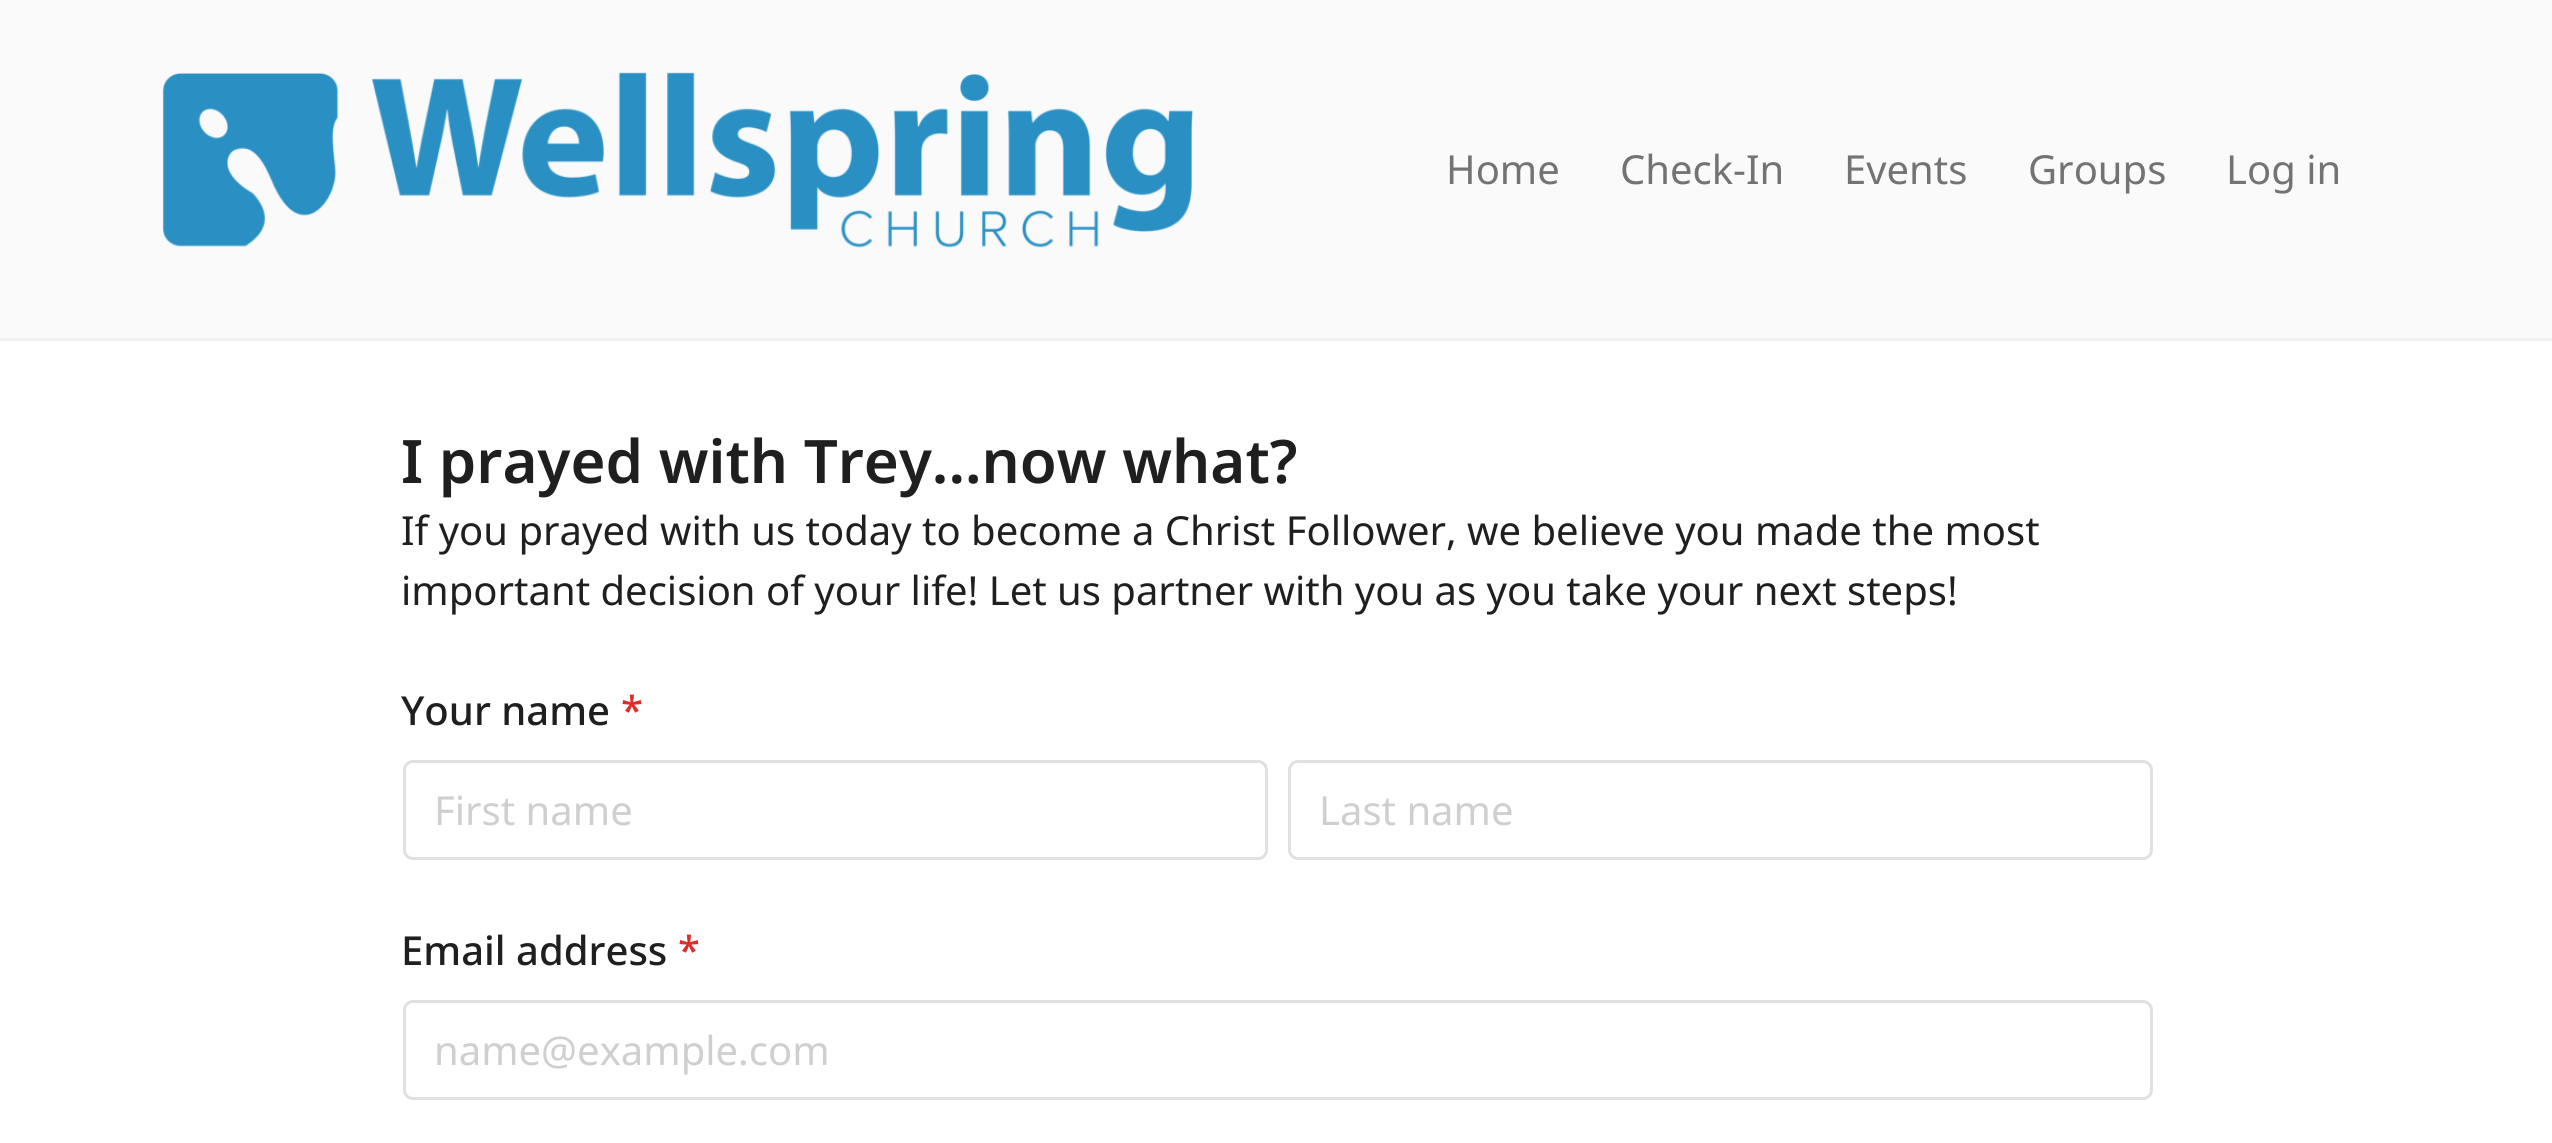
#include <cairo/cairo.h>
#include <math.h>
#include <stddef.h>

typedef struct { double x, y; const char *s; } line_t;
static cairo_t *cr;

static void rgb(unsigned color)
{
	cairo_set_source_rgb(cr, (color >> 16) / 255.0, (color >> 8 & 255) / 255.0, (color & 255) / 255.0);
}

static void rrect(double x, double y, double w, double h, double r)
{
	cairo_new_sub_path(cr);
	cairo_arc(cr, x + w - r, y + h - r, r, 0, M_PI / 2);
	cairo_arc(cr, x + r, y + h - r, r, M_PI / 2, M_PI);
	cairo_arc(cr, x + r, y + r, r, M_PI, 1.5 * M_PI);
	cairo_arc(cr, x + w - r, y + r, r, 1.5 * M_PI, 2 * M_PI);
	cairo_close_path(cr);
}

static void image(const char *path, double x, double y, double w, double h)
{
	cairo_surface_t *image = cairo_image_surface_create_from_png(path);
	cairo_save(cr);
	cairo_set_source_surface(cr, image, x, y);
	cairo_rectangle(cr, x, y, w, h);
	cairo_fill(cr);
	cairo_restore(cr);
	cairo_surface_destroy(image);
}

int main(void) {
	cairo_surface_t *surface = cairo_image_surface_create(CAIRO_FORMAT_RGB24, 2552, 1143);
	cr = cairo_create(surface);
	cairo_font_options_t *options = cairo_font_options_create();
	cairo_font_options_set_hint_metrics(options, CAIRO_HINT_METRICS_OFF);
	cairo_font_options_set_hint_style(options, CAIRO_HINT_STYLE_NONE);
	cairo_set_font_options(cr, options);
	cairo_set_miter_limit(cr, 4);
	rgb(0xffffff);
	cairo_paint(cr);
	rgb(0xfafafa);
	cairo_rectangle(cr, 0, 0, 2552, 338);
	cairo_fill(cr);
	rgb(0xf2f2f2);
	cairo_rectangle(cr, 0, 338, 2552, 3);
	cairo_fill(cr);
	image("img/1.png", 162, 72, 1032, 176);
	rrect(404.5, 761.5, 862, 97, 8.5);
	rgb(0xe0e0e0);
	cairo_set_line_width(cr, 3);
	cairo_stroke(cr);
	rrect(1289.5, 761.5, 862, 97, 8.5);
	cairo_stroke(cr);
	rrect(404.5, 1001.5, 1747, 97, 8.5);
	cairo_stroke(cr);
	cairo_select_font_face(cr, "Noto Sans", CAIRO_FONT_SLANT_NORMAL, CAIRO_FONT_WEIGHT_NORMAL);
	cairo_set_font_size(cr, 40);
	rgb(0x737373);
	{
		static const line_t items[] = {
			{1446, 184, "Home"},
			{1620, 184, "Check-In"},
			{1844, 184, "Events"},
			{2028, 184, "Groups"},
			{2226, 184, "Log in"},
		};
		for (size_t i = 0; i < sizeof items / sizeof *items; i++) {
			cairo_move_to(cr, items[i].x, items[i].y);
			cairo_show_text(cr, items[i].s);
		}
	}
	cairo_select_font_face(cr, "Noto Sans SemiBold", CAIRO_FONT_SLANT_NORMAL, CAIRO_FONT_WEIGHT_NORMAL);
	cairo_set_font_size(cr, 60);
	rgb(0x1f1f1f);
	cairo_move_to(cr, 401, 483);
	cairo_show_text(cr, "I prayed with Trey...now what?");
	cairo_select_font_face(cr, "Noto Sans", CAIRO_FONT_SLANT_NORMAL, CAIRO_FONT_WEIGHT_NORMAL);
	cairo_set_font_size(cr, 40);
	cairo_move_to(cr, 401, 545);
	cairo_show_text(cr, "If you prayed with us today to become a Christ Follower, we believe you made the most");
	cairo_move_to(cr, 401, 605);
	cairo_show_text(cr, "important decision of your life! Let us partner with you as you take your next steps!");
	cairo_select_font_face(cr, "Noto Sans Medium", CAIRO_FONT_SLANT_NORMAL, CAIRO_FONT_WEIGHT_NORMAL);
	cairo_move_to(cr, 401, 725);
	cairo_show_text(cr, "Your name");
	rgb(0xe02c29);
	cairo_move_to(cr, 621, 725);
	cairo_show_text(cr, "*");
	cairo_select_font_face(cr, "Noto Sans", CAIRO_FONT_SLANT_NORMAL, CAIRO_FONT_WEIGHT_NORMAL);
	rgb(0xcfcfcf);
	cairo_move_to(cr, 434, 825);
	cairo_show_text(cr, "First name");
	cairo_move_to(cr, 1319, 825);
	cairo_show_text(cr, "Last name");
	cairo_select_font_face(cr, "Noto Sans Medium", CAIRO_FONT_SLANT_NORMAL, CAIRO_FONT_WEIGHT_NORMAL);
	rgb(0x1f1f1f);
	cairo_move_to(cr, 401, 965);
	cairo_show_text(cr, "Email address");
	rgb(0xe02c29);
	cairo_move_to(cr, 678, 965);
	cairo_show_text(cr, "*");
	cairo_select_font_face(cr, "Noto Sans", CAIRO_FONT_SLANT_NORMAL, CAIRO_FONT_WEIGHT_NORMAL);
	rgb(0xcfcfcf);
	cairo_move_to(cr, 434, 1065);
	cairo_show_text(cr, "name@example.com");
	cairo_surface_write_to_png(surface, "page.png");
	cairo_font_options_destroy(options);
	cairo_destroy(cr);
	cairo_surface_destroy(surface);
	return 0;
}
